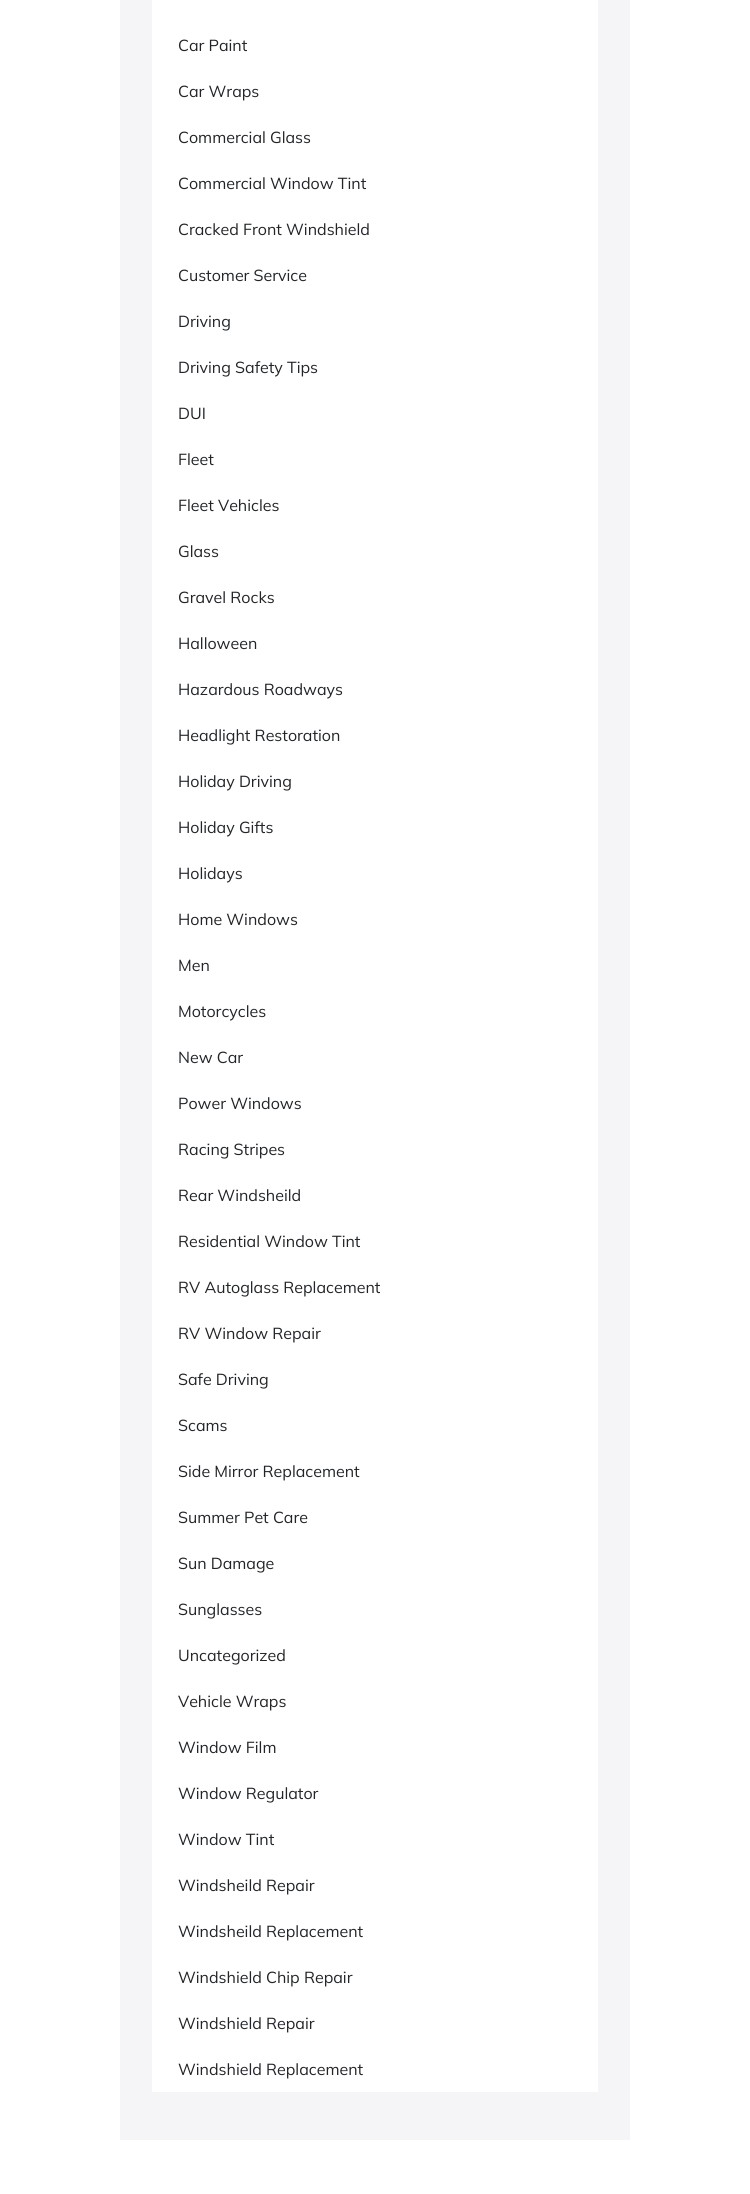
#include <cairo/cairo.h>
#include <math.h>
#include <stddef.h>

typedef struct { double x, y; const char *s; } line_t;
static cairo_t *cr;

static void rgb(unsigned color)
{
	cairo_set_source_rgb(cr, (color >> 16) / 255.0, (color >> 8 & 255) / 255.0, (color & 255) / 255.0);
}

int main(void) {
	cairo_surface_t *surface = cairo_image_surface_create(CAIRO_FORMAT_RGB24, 750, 2194);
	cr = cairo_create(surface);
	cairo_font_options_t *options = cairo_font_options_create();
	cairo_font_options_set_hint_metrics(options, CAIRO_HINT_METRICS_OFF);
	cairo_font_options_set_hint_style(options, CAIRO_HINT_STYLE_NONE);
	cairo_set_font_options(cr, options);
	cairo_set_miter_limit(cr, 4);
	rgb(0xffffff);
	cairo_paint(cr);
	rgb(0xf5f5f8);
	cairo_rectangle(cr, 120, 0, 510, 2140);
	cairo_fill(cr);
	rgb(0xffffff);
	cairo_rectangle(cr, 152, 0, 446, 2092);
	cairo_fill(cr);
	cairo_select_font_face(cr, "Mulish", CAIRO_FONT_SLANT_NORMAL, CAIRO_FONT_WEIGHT_NORMAL);
	cairo_set_font_size(cr, 16);
	rgb(0x212529);
	{
		static const line_t items[] = {
			{178, 51, "Car Paint"},
			{178, 97, "Car Wraps"},
			{178, 143, "Commercial Glass"},
			{178, 189, "Commercial Window Tint"},
			{178, 235, "Cracked Front Windshield"},
			{178, 281, "Customer Service"},
			{178, 327, "Driving"},
			{178, 373, "Driving Safety Tips"},
			{178, 419, "DUI"},
			{178, 465, "Fleet"},
			{178, 511, "Fleet Vehicles"},
			{178, 557, "Glass"},
			{178, 603, "Gravel Rocks"},
			{178, 649, "Halloween"},
			{178, 695, "Hazardous Roadways"},
			{178, 741, "Headlight Restoration"},
			{178, 787, "Holiday Driving"},
			{178, 833, "Holiday Gifts"},
			{178, 879, "Holidays"},
			{178, 925, "Home Windows"},
			{178, 971, "Men"},
			{178, 1017, "Motorcycles"},
			{178, 1063, "New Car"},
			{178, 1109, "Power Windows"},
			{178, 1155, "Racing Stripes"},
			{178, 1201, "Rear Windsheild"},
			{178, 1247, "Residential Window Tint"},
			{178, 1293, "RV Autoglass Replacement"},
			{178, 1339, "RV Window Repair"},
			{178, 1385, "Safe Driving"},
			{178, 1431, "Scams"},
			{178, 1477, "Side Mirror Replacement"},
			{178, 1523, "Summer Pet Care"},
			{178, 1569, "Sun Damage"},
			{178, 1615, "Sunglasses"},
			{178, 1661, "Uncategorized"},
			{178, 1707, "Vehicle Wraps"},
			{178, 1753, "Window Film"},
			{178, 1799, "Window Regulator"},
			{178, 1845, "Window Tint"},
			{178, 1891, "Windsheild Repair"},
			{178, 1937, "Windsheild Replacement"},
			{178, 1983, "Windshield Chip Repair"},
			{178, 2029, "Windshield Repair"},
			{178, 2075, "Windshield Replacement"},
		};
		for (size_t i = 0; i < sizeof items / sizeof *items; i++) {
			cairo_move_to(cr, items[i].x, items[i].y);
			cairo_show_text(cr, items[i].s);
		}
	}
	cairo_surface_write_to_png(surface, "page.png");
	cairo_font_options_destroy(options);
	cairo_destroy(cr);
	cairo_surface_destroy(surface);
	return 0;
}
